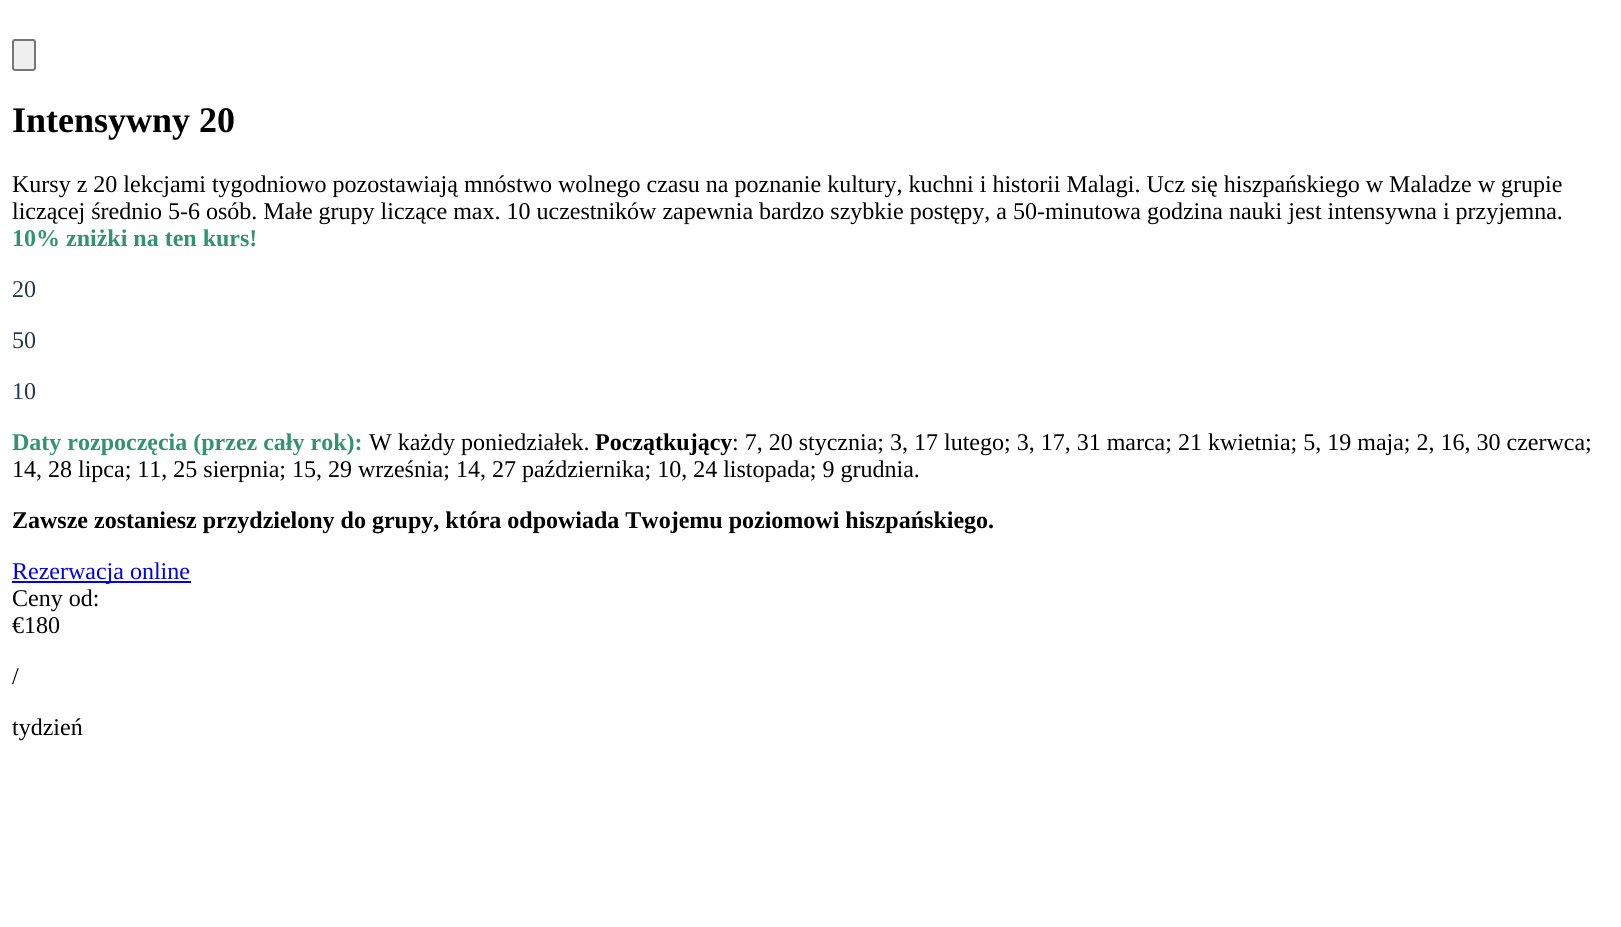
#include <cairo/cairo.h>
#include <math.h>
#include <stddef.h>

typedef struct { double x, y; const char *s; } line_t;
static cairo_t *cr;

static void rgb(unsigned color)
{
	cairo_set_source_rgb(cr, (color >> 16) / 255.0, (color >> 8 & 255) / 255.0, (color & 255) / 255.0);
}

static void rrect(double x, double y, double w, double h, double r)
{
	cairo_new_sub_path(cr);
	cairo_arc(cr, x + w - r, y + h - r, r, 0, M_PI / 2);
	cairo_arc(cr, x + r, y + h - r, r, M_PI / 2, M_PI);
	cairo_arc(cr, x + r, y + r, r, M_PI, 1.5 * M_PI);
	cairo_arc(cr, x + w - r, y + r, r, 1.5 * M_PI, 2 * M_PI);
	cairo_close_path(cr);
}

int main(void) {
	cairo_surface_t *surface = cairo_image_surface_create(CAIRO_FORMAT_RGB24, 1621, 927);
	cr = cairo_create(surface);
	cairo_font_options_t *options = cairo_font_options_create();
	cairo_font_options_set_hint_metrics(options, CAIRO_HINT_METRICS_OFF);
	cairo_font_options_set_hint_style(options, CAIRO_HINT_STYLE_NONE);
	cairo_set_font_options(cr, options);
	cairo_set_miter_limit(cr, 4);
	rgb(0xffffff);
	cairo_paint(cr);
	rgb(0xefefef);
	rrect(13, 40, 22, 30, 2);
	cairo_fill_preserve(cr);
	rgb(0x767676);
	cairo_stroke(cr);
	rgb(0x0000ee);
	cairo_rectangle(cr, 12, 581, 179, 2);
	cairo_fill(cr);
	cairo_select_font_face(cr, "Liberation Serif", CAIRO_FONT_SLANT_NORMAL, CAIRO_FONT_WEIGHT_BOLD);
	cairo_set_font_size(cr, 36);
	rgb(0x000000);
	cairo_move_to(cr, 12, 132);
	cairo_show_text(cr, "Intensywny 20");
	cairo_select_font_face(cr, "Liberation Serif", CAIRO_FONT_SLANT_NORMAL, CAIRO_FONT_WEIGHT_NORMAL);
	cairo_set_font_size(cr, 24);
	cairo_move_to(cr, 12, 192);
	cairo_show_text(cr, "Kursy z 20 lekcjami tygodniowo pozostawiają mnóstwo wolnego czasu na poznanie kultury, kuchni i historii Malagi. Ucz się hiszpańskiego w Maladze w grupie");
	cairo_move_to(cr, 12, 219);
	cairo_show_text(cr, "liczącej średnio 5-6 osób. Małe grupy liczące max. 10 uczestników zapewnia bardzo szybkie postępy, a 50-minutowa godzina nauki jest intensywna i przyjemna.");
	cairo_select_font_face(cr, "Liberation Serif", CAIRO_FONT_SLANT_NORMAL, CAIRO_FONT_WEIGHT_BOLD);
	rgb(0x32936f);
	cairo_move_to(cr, 12, 246);
	cairo_show_text(cr, "10% zniżki na ten kurs!");
	cairo_select_font_face(cr, "Liberation Serif", CAIRO_FONT_SLANT_NORMAL, CAIRO_FONT_WEIGHT_NORMAL);
	rgb(0x243b4a);
	{
		static const line_t items[] = {
			{12, 297, "20"},
			{12, 348, "50"},
			{12, 399, "10"},
		};
		for (size_t i = 0; i < sizeof items / sizeof *items; i++) {
			cairo_move_to(cr, items[i].x, items[i].y);
			cairo_show_text(cr, items[i].s);
		}
	}
	cairo_select_font_face(cr, "Liberation Serif", CAIRO_FONT_SLANT_NORMAL, CAIRO_FONT_WEIGHT_BOLD);
	rgb(0x32936f);
	cairo_move_to(cr, 12, 450);
	cairo_show_text(cr, "Daty rozpoczęcia (przez cały rok):");
	cairo_select_font_face(cr, "Liberation Serif", CAIRO_FONT_SLANT_NORMAL, CAIRO_FONT_WEIGHT_NORMAL);
	rgb(0x000000);
	cairo_move_to(cr, 369, 450);
	cairo_show_text(cr, "W każdy poniedziałek.");
	cairo_select_font_face(cr, "Liberation Serif", CAIRO_FONT_SLANT_NORMAL, CAIRO_FONT_WEIGHT_BOLD);
	cairo_move_to(cr, 595, 450);
	cairo_show_text(cr, "Początkujący");
	cairo_select_font_face(cr, "Liberation Serif", CAIRO_FONT_SLANT_NORMAL, CAIRO_FONT_WEIGHT_NORMAL);
	cairo_move_to(cr, 732, 450);
	cairo_show_text(cr, ": 7, 20 stycznia; 3, 17 lutego; 3, 17, 31 marca; 21 kwietnia; 5, 19 maja; 2, 16, 30 czerwca;");
	cairo_move_to(cr, 12, 477);
	cairo_show_text(cr, "14, 28 lipca; 11, 25 sierpnia; 15, 29 września; 14, 27 października; 10, 24 listopada; 9 grudnia.");
	cairo_select_font_face(cr, "Liberation Serif", CAIRO_FONT_SLANT_NORMAL, CAIRO_FONT_WEIGHT_BOLD);
	cairo_move_to(cr, 12, 528);
	cairo_show_text(cr, "Zawsze zostaniesz przydzielony do grupy, która odpowiada Twojemu poziomowi hiszpańskiego.");
	cairo_select_font_face(cr, "Liberation Serif", CAIRO_FONT_SLANT_NORMAL, CAIRO_FONT_WEIGHT_NORMAL);
	rgb(0x0000ee);
	cairo_move_to(cr, 12, 579);
	cairo_show_text(cr, "Rezerwacja online");
	rgb(0x000000);
	{
		static const line_t items[] = {
			{12, 606, "Ceny od:"},
			{12, 633, "€180"},
			{12, 684, "/"},
			{12, 735, "tydzień"},
		};
		for (size_t i = 0; i < sizeof items / sizeof *items; i++) {
			cairo_move_to(cr, items[i].x, items[i].y);
			cairo_show_text(cr, items[i].s);
		}
	}
	cairo_surface_write_to_png(surface, "page.png");
	cairo_font_options_destroy(options);
	cairo_destroy(cr);
	cairo_surface_destroy(surface);
	return 0;
}
